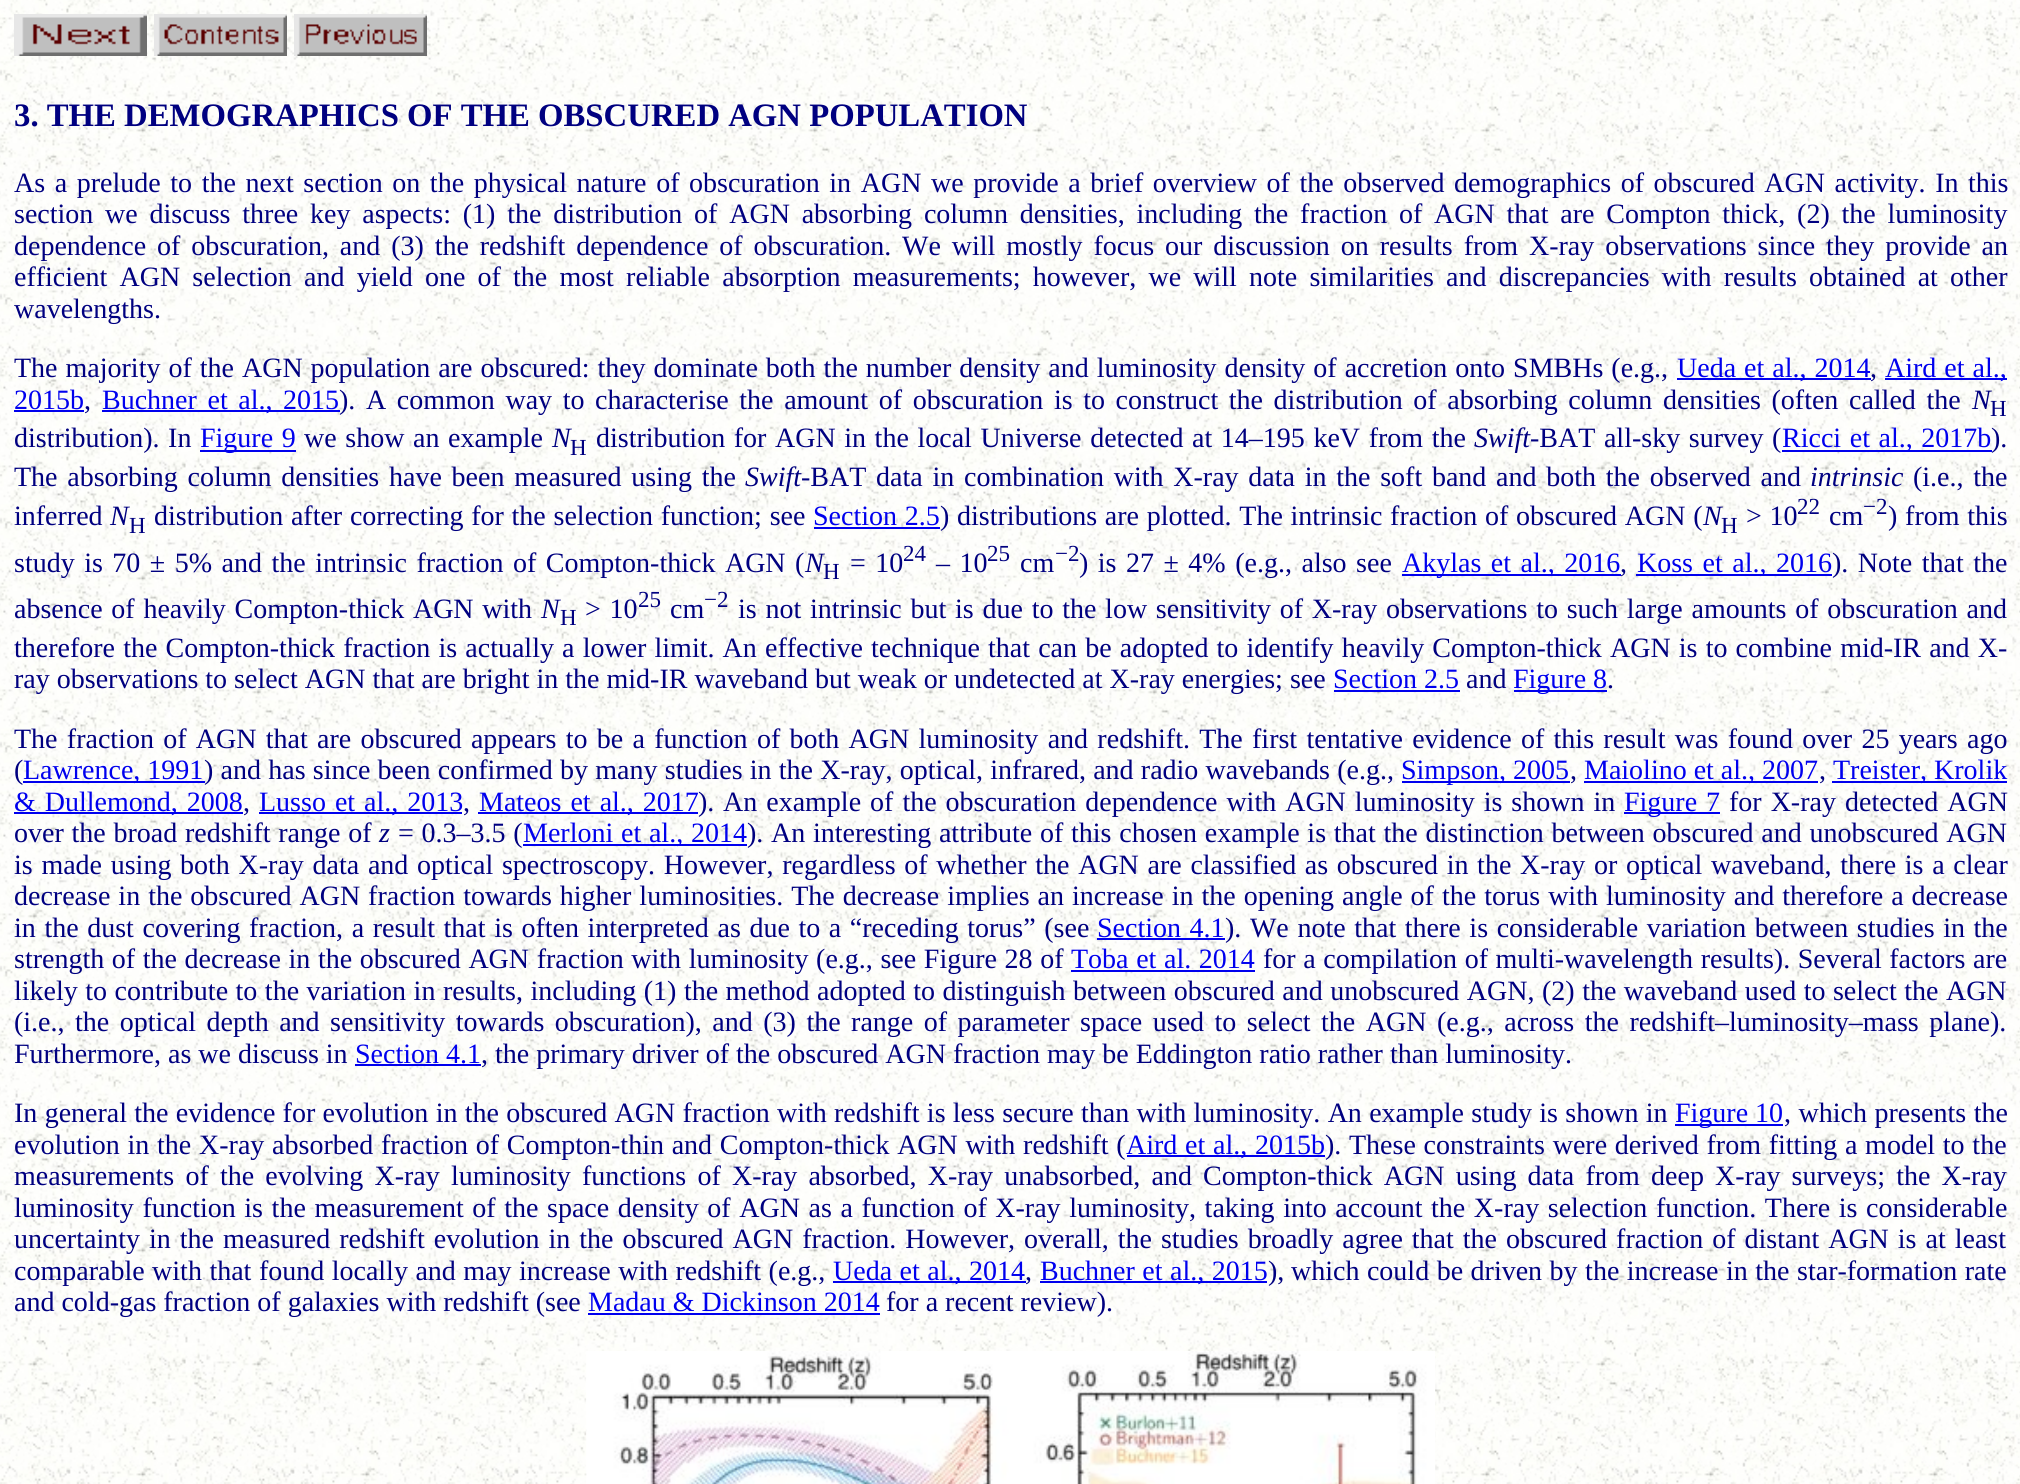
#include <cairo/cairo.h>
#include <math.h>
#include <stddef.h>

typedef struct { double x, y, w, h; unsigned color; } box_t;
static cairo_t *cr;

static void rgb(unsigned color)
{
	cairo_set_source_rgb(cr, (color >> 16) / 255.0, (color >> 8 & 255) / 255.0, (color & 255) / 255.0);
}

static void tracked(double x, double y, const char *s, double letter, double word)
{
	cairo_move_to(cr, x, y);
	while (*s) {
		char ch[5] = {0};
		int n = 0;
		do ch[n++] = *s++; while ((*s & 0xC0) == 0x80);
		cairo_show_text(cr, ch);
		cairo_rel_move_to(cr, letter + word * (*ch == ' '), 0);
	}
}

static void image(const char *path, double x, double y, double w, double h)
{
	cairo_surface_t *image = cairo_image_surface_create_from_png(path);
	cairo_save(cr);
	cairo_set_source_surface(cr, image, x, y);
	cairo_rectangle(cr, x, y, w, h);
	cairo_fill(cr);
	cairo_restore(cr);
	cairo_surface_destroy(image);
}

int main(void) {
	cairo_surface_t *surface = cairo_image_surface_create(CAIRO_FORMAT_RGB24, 2020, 1484);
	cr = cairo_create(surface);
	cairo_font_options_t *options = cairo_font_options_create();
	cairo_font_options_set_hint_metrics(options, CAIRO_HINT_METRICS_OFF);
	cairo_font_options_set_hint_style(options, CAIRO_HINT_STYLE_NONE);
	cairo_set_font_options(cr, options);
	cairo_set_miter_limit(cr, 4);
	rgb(0xffffff);
	cairo_paint(cr);
	image("img/1.png", 0, 0, 2020, 1484);
	image("img/2.png", 14, 14, 133, 42);
	image("img/3.png", 154, 14, 133, 42);
	image("img/4.png", 294, 14, 133, 42);
	{
		static const box_t items[] = {
			{1677, 378, 194, 2, 0x0000ee},
			{1885, 378, 122, 2, 0x0000ee},
			{14, 410, 70, 2, 0x0000ee},
			{102, 410, 238, 2, 0x0000ee},
			{200, 450, 96, 2, 0x0000ee},
			{1782, 450, 210, 2, 0x0000ee},
			{814, 527, 126, 2, 0x0000ee},
			{1402, 574, 219, 2, 0x0000ee},
			{1636, 574, 196, 2, 0x0000ee},
			{1334, 690, 126, 2, 0x0000ee},
			{1514, 690, 93, 2, 0x0000ee},
			{23, 781, 182, 2, 0x0000ee},
			{1402, 781, 168, 2, 0x0000ee},
			{1584, 781, 234, 2, 0x0000ee},
			{1832, 781, 175, 2, 0x0000ee},
			{14, 812, 229, 2, 0x0000ee},
			{259, 812, 203, 2, 0x0000ee},
			{478, 812, 220, 2, 0x0000ee},
			{1624, 812, 96, 2, 0x0000ee},
			{523, 844, 224, 2, 0x0000ee},
			{1097, 938, 128, 2, 0x0000ee},
			{1071, 970, 184, 2, 0x0000ee},
			{355, 1064, 126, 2, 0x0000ee},
			{1675, 1124, 108, 2, 0x0000ee},
			{1127, 1155, 198, 2, 0x0000ee},
			{833, 1281, 193, 2, 0x0000ee},
			{1040, 1281, 227, 2, 0x0000ee},
			{588, 1313, 292, 2, 0x0000ee},
		};
		for (size_t i = 0; i < sizeof items / sizeof *items; i++) {
			rgb(items[i].color);
			cairo_rectangle(cr, items[i].x, items[i].y, items[i].w, items[i].h);
			cairo_fill(cr);
		}
	}
	image("img/5.png", 586, 1351, 849, 133);
	cairo_select_font_face(cr, "Liberation Serif", CAIRO_FONT_SLANT_NORMAL, CAIRO_FONT_WEIGHT_BOLD);
	cairo_set_font_size(cr, 32.75);
	rgb(0x000080);
	cairo_move_to(cr, 14, 126);
	cairo_show_text(cr, "3. THE DEMOGRAPHICS OF THE OBSCURED AGN POPULATION");
	cairo_select_font_face(cr, "Liberation Serif", CAIRO_FONT_SLANT_NORMAL, CAIRO_FONT_WEIGHT_NORMAL);
	cairo_set_font_size(cr, 28);
	tracked(14, 192, "As a prelude to the next section on the physical nature of obscuration in AGN we provide a brief overview of the observed demographics of obscured AGN activity. In this", 0, 2.6);
	tracked(14, 223, "section we discuss three key aspects: (1) the distribution of AGN absorbing column densities, including the fraction of AGN that are Compton thick, (2) the luminosity", 0, 4.8);
	tracked(14, 255, "dependence of obscuration, and (3) the redshift dependence of obscuration. We will mostly focus our discussion on results from X-ray observations since they provide an", 0, 3.9);
	tracked(14, 286, "efficient AGN selection and yield one of the most reliable absorption measurements; however, we will note similarities and discrepancies with results obtained at other", 0, 5.2);
	cairo_move_to(cr, 14, 318);
	cairo_show_text(cr, "wavelengths.");
	tracked(14, 377, "The majority of the AGN population are obscured: they dominate both the number density and luminosity density of accretion onto SMBHs (e.g.,", 0, 1);
	rgb(0x0000ee);
	tracked(1677, 377, "Ueda et al., 2014", 0, 1);
	rgb(0x000080);
	cairo_move_to(cr, 1870, 377);
	cairo_show_text(cr, ",");
	rgb(0x0000ee);
	tracked(1885, 377, "Aird et al.,", 0, 1);
	cairo_move_to(cr, 14, 409);
	cairo_show_text(cr, "2015b");
	rgb(0x000080);
	cairo_move_to(cr, 84, 409);
	cairo_show_text(cr, ",");
	rgb(0x0000ee);
	tracked(102, 409, "Buchner et al., 2015", 0, 3.6);
	rgb(0x000080);
	cairo_move_to(cr, 339, 409);
	cairo_show_text(cr, ").");
	tracked(366, 409, "A common way to characterise the amount of obscuration is to construct the distribution of absorbing column densities (often called the", 0, 3.6);
	cairo_select_font_face(cr, "Liberation Serif", CAIRO_FONT_SLANT_ITALIC, CAIRO_FONT_WEIGHT_NORMAL);
	cairo_move_to(cr, 1972, 409);
	cairo_show_text(cr, "N");
	cairo_select_font_face(cr, "Liberation Serif", CAIRO_FONT_SLANT_NORMAL, CAIRO_FONT_WEIGHT_NORMAL);
	cairo_set_font_size(cr, 23);
	cairo_move_to(cr, 1990, 416);
	cairo_show_text(cr, "H");
	cairo_set_font_size(cr, 28);
	tracked(14, 447, "distribution). In", 0, 1.6);
	rgb(0x0000ee);
	tracked(200, 447, "Figure 9", 0, 1.6);
	rgb(0x000080);
	tracked(304, 447, "we show an example", 0, 1.6);
	cairo_select_font_face(cr, "Liberation Serif", CAIRO_FONT_SLANT_ITALIC, CAIRO_FONT_WEIGHT_NORMAL);
	cairo_move_to(cr, 552, 447);
	cairo_show_text(cr, "N");
	cairo_select_font_face(cr, "Liberation Serif", CAIRO_FONT_SLANT_NORMAL, CAIRO_FONT_WEIGHT_NORMAL);
	cairo_set_font_size(cr, 23);
	cairo_move_to(cr, 570, 455);
	cairo_show_text(cr, "H");
	cairo_set_font_size(cr, 28);
	tracked(596, 447, "distribution for AGN in the local Universe detected at 14–195 keV from the", 0, 1.6);
	cairo_select_font_face(cr, "Liberation Serif", CAIRO_FONT_SLANT_ITALIC, CAIRO_FONT_WEIGHT_NORMAL);
	cairo_move_to(cr, 1474, 447);
	cairo_show_text(cr, "Swift");
	cairo_select_font_face(cr, "Liberation Serif", CAIRO_FONT_SLANT_NORMAL, CAIRO_FONT_WEIGHT_NORMAL);
	tracked(1530, 447, "-BAT all-sky survey (", 0, 1.6);
	rgb(0x0000ee);
	tracked(1782, 447, "Ricci et al., 2017b", 0, 1.6);
	rgb(0x000080);
	cairo_move_to(cr, 1991, 447);
	cairo_show_text(cr, ").");
	tracked(14, 486, "The absorbing column densities have been measured using the", 0, 2.75);
	cairo_select_font_face(cr, "Liberation Serif", CAIRO_FONT_SLANT_ITALIC, CAIRO_FONT_WEIGHT_NORMAL);
	cairo_move_to(cr, 745, 486);
	cairo_show_text(cr, "Swift");
	cairo_select_font_face(cr, "Liberation Serif", CAIRO_FONT_SLANT_NORMAL, CAIRO_FONT_WEIGHT_NORMAL);
	tracked(801, 486, "-BAT data in combination with X-ray data in the soft band and both the observed and", 0, 2.75);
	cairo_select_font_face(cr, "Liberation Serif", CAIRO_FONT_SLANT_ITALIC, CAIRO_FONT_WEIGHT_NORMAL);
	cairo_move_to(cr, 1810, 486);
	cairo_show_text(cr, "intrinsic");
	cairo_select_font_face(cr, "Liberation Serif", CAIRO_FONT_SLANT_NORMAL, CAIRO_FONT_WEIGHT_NORMAL);
	tracked(1913, 486, "(i.e., the", 0, 2.75);
	cairo_move_to(cr, 14, 525);
	cairo_show_text(cr, "inferred");
	cairo_select_font_face(cr, "Liberation Serif", CAIRO_FONT_SLANT_ITALIC, CAIRO_FONT_WEIGHT_NORMAL);
	cairo_move_to(cr, 110, 525);
	cairo_show_text(cr, "N");
	cairo_select_font_face(cr, "Liberation Serif", CAIRO_FONT_SLANT_NORMAL, CAIRO_FONT_WEIGHT_NORMAL);
	cairo_set_font_size(cr, 23);
	cairo_move_to(cr, 129, 533);
	cairo_show_text(cr, "H");
	cairo_set_font_size(cr, 28);
	tracked(154, 525, "distribution after correcting for the selection function; see", 0, 0.75);
	rgb(0x0000ee);
	tracked(813, 525, "Section 2.5", 0, 0.75);
	rgb(0x000080);
	tracked(940, 525, ") distributions are plotted. The intrinsic fraction of obscured AGN (", 0, 0.75);
	cairo_select_font_face(cr, "Liberation Serif", CAIRO_FONT_SLANT_ITALIC, CAIRO_FONT_WEIGHT_NORMAL);
	cairo_move_to(cr, 1703, 525);
	cairo_show_text(cr, "N");
	cairo_select_font_face(cr, "Liberation Serif", CAIRO_FONT_SLANT_NORMAL, CAIRO_FONT_WEIGHT_NORMAL);
	cairo_set_font_size(cr, 23);
	cairo_move_to(cr, 1721, 533);
	cairo_show_text(cr, "H");
	cairo_set_font_size(cr, 28);
	tracked(1746, 525, "> 10", 0, 0.75);
	cairo_set_font_size(cr, 23);
	cairo_move_to(cr, 1797, 514);
	cairo_show_text(cr, "22");
	cairo_set_font_size(cr, 28);
	cairo_move_to(cr, 1829, 525);
	cairo_show_text(cr, "cm");
	cairo_set_font_size(cr, 23);
	cairo_move_to(cr, 1863, 514);
	cairo_show_text(cr, "−2");
	cairo_set_font_size(cr, 28);
	tracked(1888, 525, ") from this", 0, 0.75);
	tracked(14, 572, "study is 70 ± 5% and the intrinsic fraction of Compton-thick AGN (", 0, 2.5);
	cairo_select_font_face(cr, "Liberation Serif", CAIRO_FONT_SLANT_ITALIC, CAIRO_FONT_WEIGHT_NORMAL);
	cairo_move_to(cr, 805, 572);
	cairo_show_text(cr, "N");
	cairo_select_font_face(cr, "Liberation Serif", CAIRO_FONT_SLANT_NORMAL, CAIRO_FONT_WEIGHT_NORMAL);
	cairo_set_font_size(cr, 23);
	cairo_move_to(cr, 823, 579);
	cairo_show_text(cr, "H");
	cairo_set_font_size(cr, 28);
	tracked(850, 572, "= 10", 0, 2.5);
	cairo_set_font_size(cr, 23);
	cairo_move_to(cr, 903, 561);
	cairo_show_text(cr, "24");
	cairo_set_font_size(cr, 28);
	tracked(936, 572, "– 10", 0, 2.5);
	cairo_set_font_size(cr, 23);
	cairo_move_to(cr, 987, 561);
	cairo_show_text(cr, "25");
	cairo_set_font_size(cr, 28);
	cairo_move_to(cr, 1020, 572);
	cairo_show_text(cr, "cm");
	cairo_set_font_size(cr, 23);
	cairo_move_to(cr, 1055, 561);
	cairo_show_text(cr, "−2");
	cairo_set_font_size(cr, 28);
	tracked(1079, 572, ") is 27 ± 4% (e.g., also see", 0, 2.5);
	rgb(0x0000ee);
	tracked(1402, 572, "Akylas et al., 2016", 0, 2.5);
	rgb(0x000080);
	cairo_move_to(cr, 1620, 572);
	cairo_show_text(cr, ",");
	rgb(0x0000ee);
	tracked(1637, 572, "Koss et al., 2016", 0, 2.5);
	rgb(0x000080);
	tracked(1832, 572, "). Note that the", 0, 2.5);
	tracked(14, 618, "absence of heavily Compton-thick AGN with", 0, 1.75);
	cairo_select_font_face(cr, "Liberation Serif", CAIRO_FONT_SLANT_ITALIC, CAIRO_FONT_WEIGHT_NORMAL);
	cairo_move_to(cr, 541, 618);
	cairo_show_text(cr, "N");
	cairo_select_font_face(cr, "Liberation Serif", CAIRO_FONT_SLANT_NORMAL, CAIRO_FONT_WEIGHT_NORMAL);
	cairo_set_font_size(cr, 23);
	cairo_move_to(cr, 560, 625);
	cairo_show_text(cr, "H");
	cairo_set_font_size(cr, 28);
	tracked(585, 618, "> 10", 0, 1.75);
	cairo_set_font_size(cr, 23);
	cairo_move_to(cr, 638, 607);
	cairo_show_text(cr, "25");
	cairo_set_font_size(cr, 28);
	cairo_move_to(cr, 670, 618);
	cairo_show_text(cr, "cm");
	cairo_set_font_size(cr, 23);
	cairo_move_to(cr, 704, 607);
	cairo_show_text(cr, "−2");
	cairo_set_font_size(cr, 28);
	tracked(738, 618, "is not intrinsic but is due to the low sensitivity of X-ray observations to such large amounts of obscuration and", 0, 1.75);
	tracked(14, 657, "therefore the Compton-thick fraction is actually a lower limit. An effective technique that can be adopted to identify heavily Compton-thick AGN is to combine mid-IR and X-", 0, 1.15);
	cairo_move_to(cr, 14, 688);
	cairo_show_text(cr, "ray observations to select AGN that are bright in the mid-IR waveband but weak or undetected at X-ray energies; see");
	rgb(0x0000ee);
	cairo_move_to(cr, 1333, 688);
	cairo_show_text(cr, "Section 2.5");
	rgb(0x000080);
	cairo_move_to(cr, 1466, 688);
	cairo_show_text(cr, "and");
	rgb(0x0000ee);
	cairo_move_to(cr, 1513, 688);
	cairo_show_text(cr, "Figure 8");
	rgb(0x000080);
	cairo_move_to(cr, 1607, 688);
	cairo_show_text(cr, ".");
	tracked(14, 748, "The fraction of AGN that are obscured appears to be a function of both AGN luminosity and redshift. The first tentative evidence of this result was found over 25 years ago", 0, 2.3);
	cairo_move_to(cr, 14, 779);
	cairo_show_text(cr, "(");
	rgb(0x0000ee);
	cairo_move_to(cr, 23, 779);
	cairo_show_text(cr, "Lawrence, 1991");
	rgb(0x000080);
	tracked(204, 779, ") and has since been confirmed by many studies in the X-ray, optical, infrared, and radio wavebands (e.g.,", 0, 0.25);
	rgb(0x0000ee);
	cairo_move_to(cr, 1401, 779);
	cairo_show_text(cr, "Simpson, 2005");
	rgb(0x000080);
	cairo_move_to(cr, 1570, 779);
	cairo_show_text(cr, ",");
	rgb(0x0000ee);
	cairo_move_to(cr, 1584, 779);
	cairo_show_text(cr, "Maiolino et al., 2007");
	rgb(0x000080);
	cairo_move_to(cr, 1819, 779);
	cairo_show_text(cr, ",");
	rgb(0x0000ee);
	cairo_move_to(cr, 1833, 779);
	cairo_show_text(cr, "Treister, Krolik");
	tracked(14, 811, "& Dullemond, 2008", 0, 2);
	rgb(0x000080);
	cairo_move_to(cr, 243, 811);
	cairo_show_text(cr, ",");
	rgb(0x0000ee);
	tracked(259, 811, "Lusso et al., 2013", 0, 2);
	rgb(0x000080);
	cairo_move_to(cr, 463, 811);
	cairo_show_text(cr, ",");
	rgb(0x0000ee);
	tracked(479, 811, "Mateos et al., 2017", 0, 2);
	rgb(0x000080);
	cairo_move_to(cr, 698, 811);
	cairo_show_text(cr, ").");
	tracked(723, 811, "An example of the obscuration dependence with AGN luminosity is shown in", 0, 2);
	rgb(0x0000ee);
	tracked(1624, 811, "Figure 7", 0, 2);
	rgb(0x000080);
	tracked(1729, 811, "for X-ray detected AGN", 0, 2);
	tracked(14, 842, "over the broad redshift range of", 0, 0.75);
	cairo_select_font_face(cr, "Liberation Serif", CAIRO_FONT_SLANT_ITALIC, CAIRO_FONT_WEIGHT_NORMAL);
	cairo_move_to(cr, 379, 842);
	cairo_show_text(cr, "z");
	cairo_select_font_face(cr, "Liberation Serif", CAIRO_FONT_SLANT_NORMAL, CAIRO_FONT_WEIGHT_NORMAL);
	tracked(398, 842, "= 0.3–3.5 (", 0, 0.75);
	rgb(0x0000ee);
	tracked(523, 842, "Merloni et al., 2014", 0, 0.75);
	rgb(0x000080);
	cairo_move_to(cr, 747, 842);
	cairo_show_text(cr, ").");
	tracked(771, 842, "An interesting attribute of this chosen example is that the distinction between obscured and unobscured AGN", 0, 0.75);
	tracked(14, 874, "is made using both X-ray data and optical spectroscopy. However, regardless of whether the AGN are classified as obscured in the X-ray or optical waveband, there is a clear", 0, 1.7);
	tracked(14, 905, "decrease in the obscured AGN fraction towards higher luminosities. The decrease implies an increase in the opening angle of the torus with luminosity and therefore a decrease", 0, 1);
	tracked(14, 937, "in the dust covering fraction, a result that is often interpreted as due to a “receding torus” (see", 0, 1.6);
	rgb(0x0000ee);
	tracked(1097, 937, "Section 4.1", 0, 1.6);
	rgb(0x000080);
	tracked(1225, 937, "). We note that there is considerable variation between studies in the", 0, 1.6);
	tracked(14, 968, "strength of the decrease in the obscured AGN fraction with luminosity (e.g., see Figure 28 of", 0, 0.6);
	rgb(0x0000ee);
	tracked(1071, 968, "Toba et al. 2014", 0, 0.6);
	rgb(0x000080);
	tracked(1263, 968, "for a compilation of multi-wavelength results). Several factors are", 0, 0.6);
	tracked(14, 1000, "likely to contribute to the variation in results, including (1) the method adopted to distinguish between obscured and unobscured AGN, (2) the waveband used to select the AGN", 0, 0.5);
	tracked(14, 1031, "(i.e., the optical depth and sensitivity towards obscuration), and (3) the range of parameter space used to select the AGN (e.g., across the redshift–luminosity–mass plane).", 0, 3.5);
	cairo_move_to(cr, 14, 1063);
	cairo_show_text(cr, "Furthermore, as we discuss in");
	rgb(0x0000ee);
	cairo_move_to(cr, 355, 1063);
	cairo_show_text(cr, "Section 4.1");
	rgb(0x000080);
	cairo_move_to(cr, 481, 1063);
	cairo_show_text(cr, ", the primary driver of the obscured AGN fraction may be Eddington ratio rather than luminosity.");
	tracked(14, 1122, "In general the evidence for evolution in the obscured AGN fraction with redshift is less secure than with luminosity. An example study is shown in", 0, 0.3);
	rgb(0x0000ee);
	cairo_move_to(cr, 1675, 1122);
	cairo_show_text(cr, "Figure 10");
	rgb(0x000080);
	tracked(1784, 1122, ", which presents the", 0, 0.5);
	tracked(14, 1154, "evolution in the X-ray absorbed fraction of Compton-thin and Compton-thick AGN with redshift (", 0, 0.75);
	rgb(0x0000ee);
	tracked(1126, 1154, "Aird et al., 2015b", 0, 0.75);
	rgb(0x000080);
	cairo_move_to(cr, 1325, 1154);
	cairo_show_text(cr, ").");
	tracked(1349, 1154, "These constraints were derived from fitting a model to the", 0, 0.75);
	tracked(14, 1185, "measurements of the evolving X-ray luminosity functions of X-ray absorbed, X-ray unabsorbed, and Compton-thick AGN using data from deep X-ray surveys; the X-ray", 0, 4.2);
	tracked(14, 1217, "luminosity function is the measurement of the space density of AGN as a function of X-ray luminosity, taking into account the X-ray selection function. There is considerable", 0, 1.6);
	tracked(14, 1248, "uncertainty in the measured redshift evolution in the obscured AGN fraction. However, overall, the studies broadly agree that the obscured fraction of distant AGN is at least", 0, 2);
	tracked(14, 1280, "comparable with that found locally and may increase with redshift (e.g.,", 0, 0.5);
	rgb(0x0000ee);
	tracked(833, 1280, "Ueda et al., 2014", 0, 0.5);
	rgb(0x000080);
	cairo_move_to(cr, 1025, 1280);
	cairo_show_text(cr, ",");
	rgb(0x0000ee);
	tracked(1040, 1280, "Buchner et al., 2015", 0, 0.5);
	rgb(0x000080);
	cairo_move_to(cr, 1268, 1280);
	cairo_show_text(cr, "),");
	tracked(1291, 1280, "which could be driven by the increase in the star-formation rate", 0, 0.5);
	cairo_move_to(cr, 14, 1311);
	cairo_show_text(cr, "and cold-gas fraction of galaxies with redshift (see");
	rgb(0x0000ee);
	cairo_move_to(cr, 588, 1311);
	cairo_show_text(cr, "Madau & Dickinson 2014");
	rgb(0x000080);
	cairo_move_to(cr, 886, 1311);
	cairo_show_text(cr, "for a recent review).");
	cairo_surface_write_to_png(surface, "page.png");
	cairo_font_options_destroy(options);
	cairo_destroy(cr);
	cairo_surface_destroy(surface);
	return 0;
}
